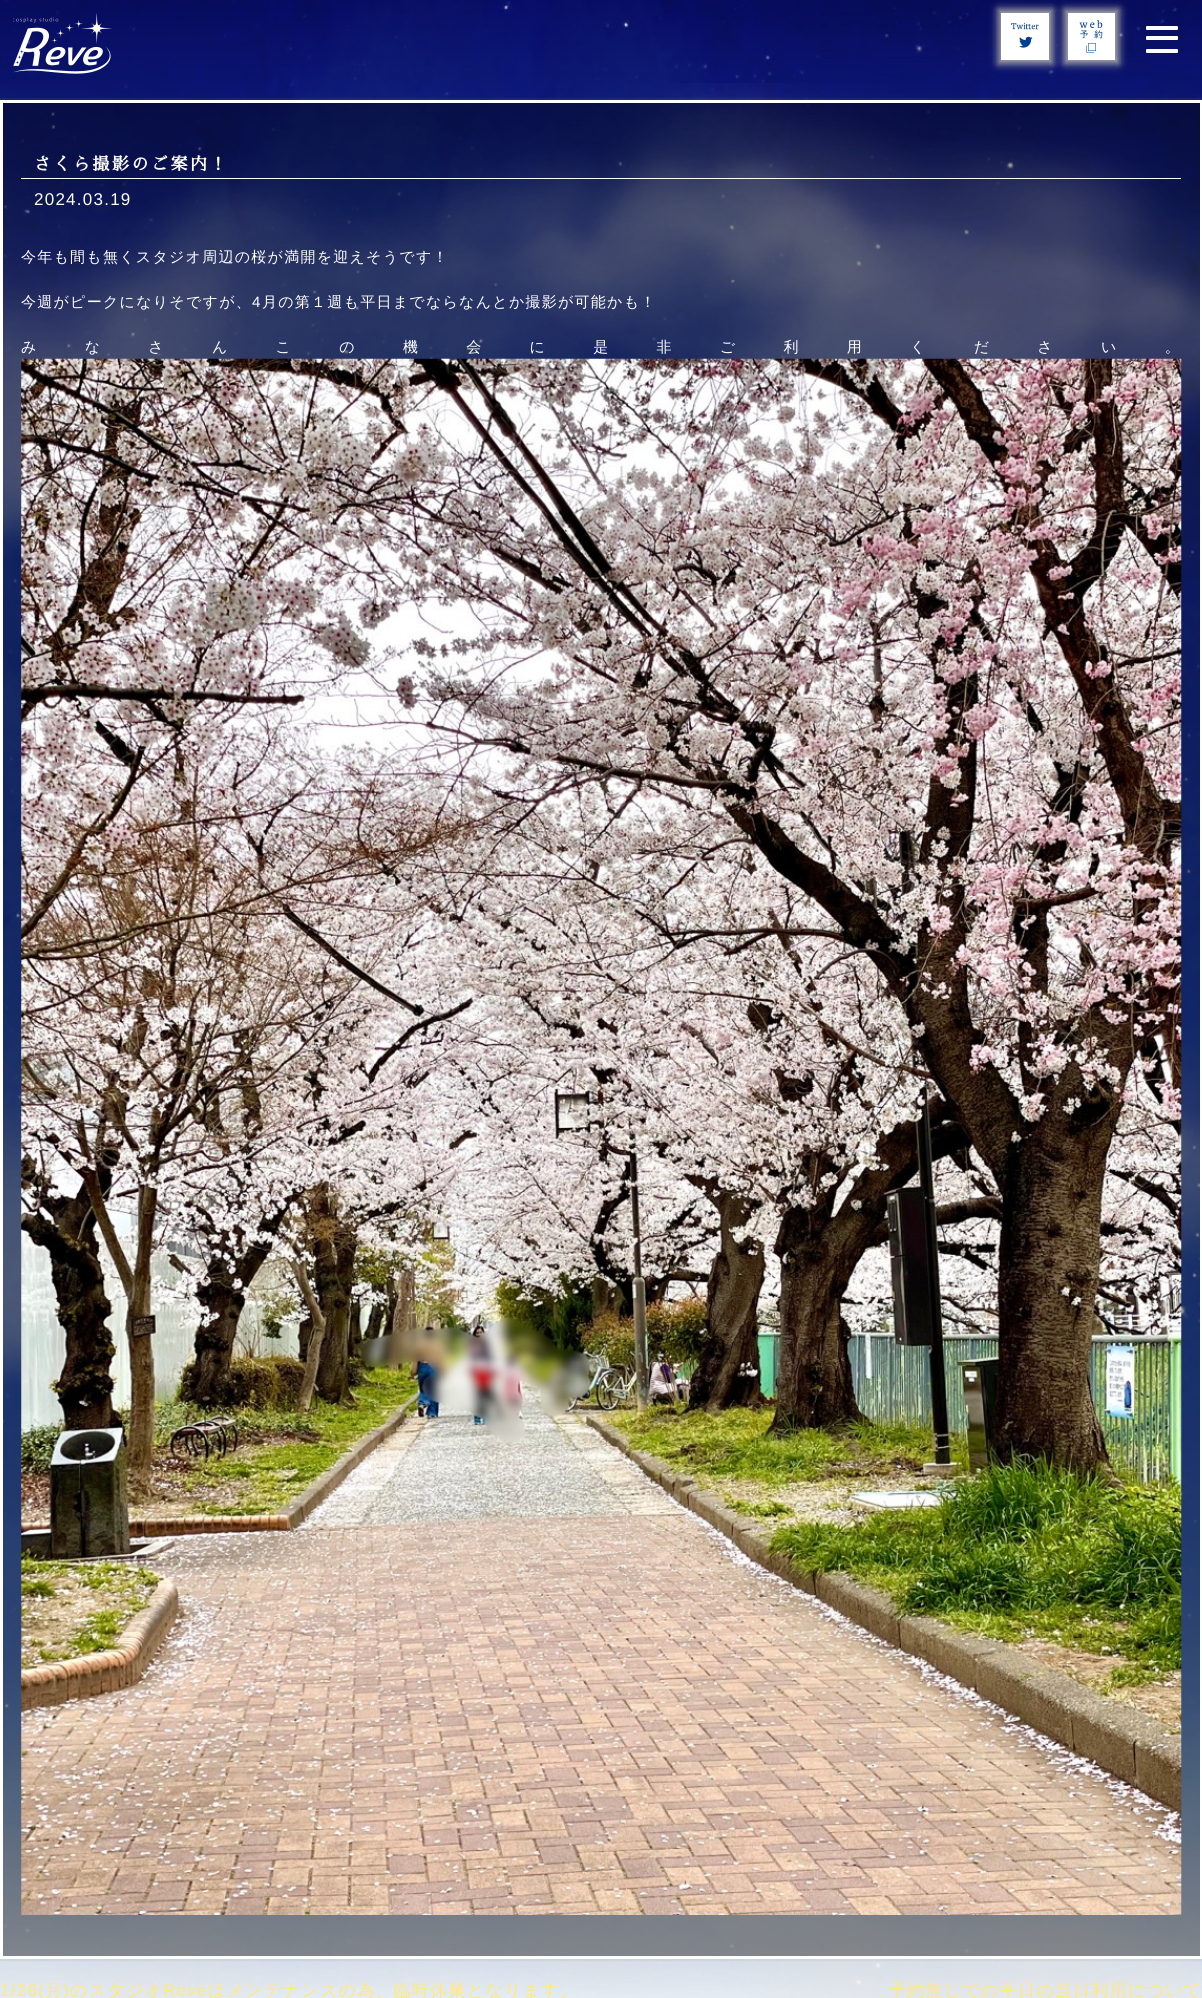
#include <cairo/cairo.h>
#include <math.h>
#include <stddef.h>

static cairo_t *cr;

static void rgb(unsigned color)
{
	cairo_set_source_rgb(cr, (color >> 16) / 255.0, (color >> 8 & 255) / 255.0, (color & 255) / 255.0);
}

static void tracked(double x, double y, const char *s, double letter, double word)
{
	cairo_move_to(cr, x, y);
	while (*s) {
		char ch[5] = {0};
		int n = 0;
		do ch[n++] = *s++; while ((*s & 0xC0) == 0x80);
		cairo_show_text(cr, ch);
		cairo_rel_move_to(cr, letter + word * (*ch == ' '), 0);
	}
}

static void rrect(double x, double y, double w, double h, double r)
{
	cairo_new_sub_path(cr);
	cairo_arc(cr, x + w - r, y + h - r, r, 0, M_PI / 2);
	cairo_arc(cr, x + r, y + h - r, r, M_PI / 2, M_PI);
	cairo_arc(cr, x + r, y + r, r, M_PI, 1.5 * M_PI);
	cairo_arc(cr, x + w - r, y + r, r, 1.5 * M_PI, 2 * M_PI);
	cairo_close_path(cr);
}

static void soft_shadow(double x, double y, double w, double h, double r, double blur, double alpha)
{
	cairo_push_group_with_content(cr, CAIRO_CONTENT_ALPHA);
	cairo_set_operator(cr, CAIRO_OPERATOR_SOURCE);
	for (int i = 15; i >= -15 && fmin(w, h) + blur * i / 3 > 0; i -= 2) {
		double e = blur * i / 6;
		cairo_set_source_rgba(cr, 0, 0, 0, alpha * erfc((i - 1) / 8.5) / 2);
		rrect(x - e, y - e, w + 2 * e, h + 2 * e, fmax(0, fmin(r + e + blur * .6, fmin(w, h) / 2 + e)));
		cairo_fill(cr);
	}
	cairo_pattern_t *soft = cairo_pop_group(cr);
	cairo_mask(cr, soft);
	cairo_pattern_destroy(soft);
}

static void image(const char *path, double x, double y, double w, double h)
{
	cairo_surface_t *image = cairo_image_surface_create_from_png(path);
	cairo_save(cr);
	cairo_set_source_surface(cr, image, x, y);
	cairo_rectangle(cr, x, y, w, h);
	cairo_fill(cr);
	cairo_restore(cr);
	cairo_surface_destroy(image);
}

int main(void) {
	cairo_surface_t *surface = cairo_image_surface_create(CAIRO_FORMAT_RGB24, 1202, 1998);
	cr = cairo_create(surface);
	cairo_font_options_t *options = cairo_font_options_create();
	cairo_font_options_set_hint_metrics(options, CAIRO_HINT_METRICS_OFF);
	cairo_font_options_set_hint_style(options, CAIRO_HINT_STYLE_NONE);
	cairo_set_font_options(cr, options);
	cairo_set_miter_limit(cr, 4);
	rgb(0xffffff);
	cairo_paint(cr);
	image("img/1.png", 0, 0, 1202, 1998);
	image("img/2.png", 3, 0, 1197, 1992);
	image("img/3.png", 0, 83, 1202, 1915);
	image("img/4.png", 13, 13, 99, 61);
	rgb(0xacacac);
	soft_shadow(998, 9, 55, 55, 0, 4, 1);
	rgb(0xffffff);
	cairo_rectangle(cr, 1001, 13, 48, 47);
	cairo_fill(cr);
	image("img/5.png", 1011, 22, 28, 26);
	rgb(0xacacac);
	soft_shadow(1064, 9, 55, 55, 0, 4, 1);
	rgb(0xffffff);
	cairo_rectangle(cr, 1068, 13, 47, 47);
	cairo_fill(cr);
	image("img/6.png", 1079, 20, 24, 33);
	rrect(1146, 36, 32, 4, 1);
	cairo_fill(cr);
	rrect(1146, 26, 32, 4, 1);
	cairo_fill(cr);
	rrect(1146, 49, 32, 4, 1);
	cairo_fill(cr);
	cairo_save(cr);
	cairo_set_fill_rule(cr, CAIRO_FILL_RULE_EVEN_ODD);
	cairo_new_path(cr);
	cairo_move_to(cr, 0, 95);
	cairo_line_to(cr, 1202, 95);
	cairo_line_to(cr, 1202, 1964);
	cairo_line_to(cr, 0, 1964);
	cairo_close_path(cr);
	cairo_move_to(cr, 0, 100);
	cairo_line_to(cr, 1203, 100);
	cairo_line_to(cr, 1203, 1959);
	cairo_line_to(cr, 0, 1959);
	cairo_close_path(cr);
	cairo_clip(cr);
	rgb(0x7d7d7d);
	soft_shadow(-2, 98, 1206, 1863, 0, 0.5, 0.12);
	cairo_restore(cr);
	cairo_set_source_rgba(cr, 0, 0, 0, 0.4);
	cairo_rectangle(cr, 1.5, 101.5, 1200, 1856);
	cairo_fill_preserve(cr);
	rgb(0xffffff);
	cairo_set_line_width(cr, 3);
	cairo_stroke(cr);
	cairo_rectangle(cr, 21, 178, 1160, 1);
	cairo_fill(cr);
	image("img/7.png", 21, 358, 1161, 1557);
	cairo_select_font_face(cr, "Sawarabi Mincho", CAIRO_FONT_SLANT_NORMAL, CAIRO_FONT_WEIGHT_BOLD);
	cairo_set_font_size(cr, 17);
	tracked(34, 170, "さくら撮影のご案内！", 2.5, 0);
	cairo_select_font_face(cr, "Liberation Sans", CAIRO_FONT_SLANT_NORMAL, CAIRO_FONT_WEIGHT_NORMAL);
	tracked(34, 205, "2024.03.19", 1.25, 0);
	cairo_select_font_face(cr, "WenQuanYi Zen Hei Medium", CAIRO_FONT_SLANT_NORMAL, CAIRO_FONT_WEIGHT_NORMAL);
	cairo_set_font_size(cr, 15);
	tracked(21, 262, "今年も間も無くスタジオ周辺の桜が満開を迎えそうです！", 1.25, 0);
	tracked(21, 307, "今週がピークになりそですが、", 1.25, 0);
	cairo_select_font_face(cr, "Liberation Sans", CAIRO_FONT_SLANT_NORMAL, CAIRO_FONT_WEIGHT_NORMAL);
	tracked(252, 307, "4", 1.25, 0);
	cairo_select_font_face(cr, "WenQuanYi Zen Hei Medium", CAIRO_FONT_SLANT_NORMAL, CAIRO_FONT_WEIGHT_NORMAL);
	tracked(262, 307, "月の第１週も平日までならなんとか撮影が可能かも！", 1.25, 0);
	tracked(21, 352, "みなさんこの機会に是非ご利用ください。", 48.3, 0);
	cairo_select_font_face(cr, "Liberation Sans", CAIRO_FONT_SLANT_NORMAL, CAIRO_FONT_WEIGHT_NORMAL);
	cairo_set_font_size(cr, 17);
	rgb(0xffea77);
	tracked(0, 1996, "1/26(", 1.25, 0);
	cairo_select_font_face(cr, "WenQuanYi Zen Hei Medium", CAIRO_FONT_SLANT_NORMAL, CAIRO_FONT_WEIGHT_NORMAL);
	tracked(45, 1996, "月", 1.25, 0);
	cairo_select_font_face(cr, "Liberation Sans", CAIRO_FONT_SLANT_NORMAL, CAIRO_FONT_WEIGHT_NORMAL);
	tracked(63, 1996, ")", 1.25, 0);
	cairo_select_font_face(cr, "WenQuanYi Zen Hei Medium", CAIRO_FONT_SLANT_NORMAL, CAIRO_FONT_WEIGHT_NORMAL);
	tracked(70, 1996, "のスタジオ", 1.25, 0);
	cairo_select_font_face(cr, "Liberation Sans", CAIRO_FONT_SLANT_NORMAL, CAIRO_FONT_WEIGHT_NORMAL);
	tracked(163, 1996, "Reve", 1.25, 0);
	cairo_select_font_face(cr, "WenQuanYi Zen Hei Medium", CAIRO_FONT_SLANT_NORMAL, CAIRO_FONT_WEIGHT_NORMAL);
	tracked(208, 1996, "はメンテナンスの為、臨時休業となります。", 1.25, 0);
	tracked(889, 1996, "予約無しでの平日の当日利用について", 1.25, 0);
	cairo_surface_write_to_png(surface, "page.png");
	cairo_font_options_destroy(options);
	cairo_destroy(cr);
	cairo_surface_destroy(surface);
	return 0;
}
